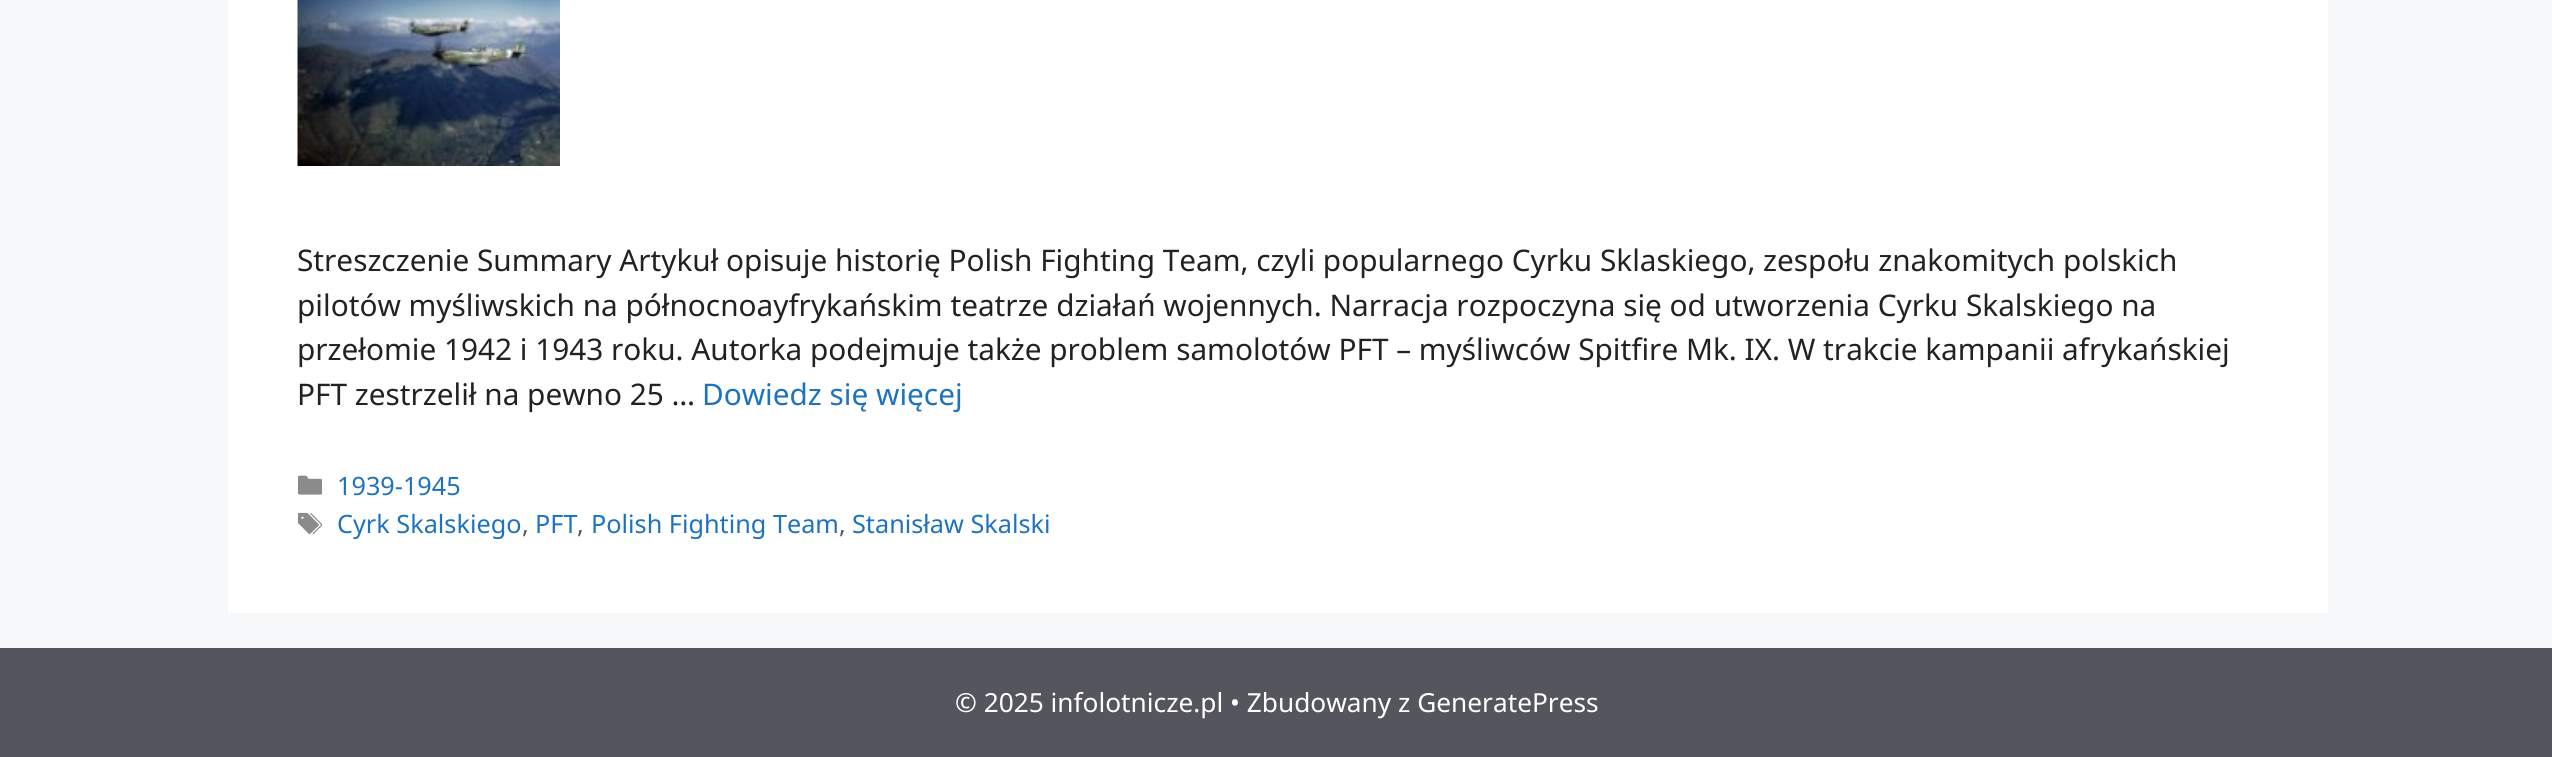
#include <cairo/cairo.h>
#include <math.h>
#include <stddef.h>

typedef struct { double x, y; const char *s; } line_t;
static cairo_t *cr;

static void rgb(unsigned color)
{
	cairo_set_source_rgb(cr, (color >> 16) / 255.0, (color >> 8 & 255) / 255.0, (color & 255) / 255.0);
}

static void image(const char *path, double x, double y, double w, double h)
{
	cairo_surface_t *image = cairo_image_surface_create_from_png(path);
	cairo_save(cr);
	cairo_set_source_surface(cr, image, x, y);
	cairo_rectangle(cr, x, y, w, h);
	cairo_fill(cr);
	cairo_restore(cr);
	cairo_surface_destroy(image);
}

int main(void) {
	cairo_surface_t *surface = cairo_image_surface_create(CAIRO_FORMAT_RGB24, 2552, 757);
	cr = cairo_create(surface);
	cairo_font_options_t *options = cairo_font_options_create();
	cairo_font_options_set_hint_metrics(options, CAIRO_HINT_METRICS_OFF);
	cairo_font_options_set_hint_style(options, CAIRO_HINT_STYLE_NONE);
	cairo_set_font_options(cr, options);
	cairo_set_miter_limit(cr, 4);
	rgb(0xf7f8f9);
	cairo_paint(cr);
	rgb(0xffffff);
	cairo_rectangle(cr, 228, 0, 2100, 613);
	cairo_fill(cr);
	image("img/1.png", 297, 0, 263, 166);
	image("img/2.png", 298, 475, 24, 20);
	image("img/3.png", 298, 512, 24, 23);
	rgb(0x55555e);
	cairo_rectangle(cr, 0, 648, 2552, 109);
	cairo_fill(cr);
	cairo_select_font_face(cr, "Noto Sans", CAIRO_FONT_SLANT_NORMAL, CAIRO_FONT_WEIGHT_NORMAL);
	cairo_set_font_size(cr, 29.75);
	rgb(0x222222);
	{
		static const line_t items[] = {
			{297, 271, "Streszczenie Summary Artykuł opisuje historię Polish Fighting Team, czyli popularnego Cyrku Sklaskiego, zespołu znakomitych polskich"},
			{297, 316, "pilotów myśliwskich na północnoayfrykańskim teatrze działań wojennych. Narracja rozpoczyna się od utworzenia Cyrku Skalskiego na"},
			{297, 360, "przełomie 1942 i 1943 roku. Autorka podejmuje także problem samolotów PFT – myśliwców Spitfire Mk. IX. W trakcie kampanii afrykańskiej"},
			{297, 405, "PFT zestrzelił na pewno 25 …"},
		};
		for (size_t i = 0; i < sizeof items / sizeof *items; i++) {
			cairo_move_to(cr, items[i].x, items[i].y);
			cairo_show_text(cr, items[i].s);
		}
	}
	rgb(0x1e73be);
	cairo_move_to(cr, 702, 405);
	cairo_show_text(cr, "Dowiedz się więcej");
	cairo_set_font_size(cr, 25.25);
	cairo_move_to(cr, 337, 495);
	cairo_show_text(cr, "1939-1945");
	cairo_move_to(cr, 337, 533);
	cairo_show_text(cr, "Cyrk Skalskiego");
	rgb(0x595959);
	cairo_move_to(cr, 522, 533);
	cairo_show_text(cr, ",");
	rgb(0x1e73be);
	cairo_move_to(cr, 535, 533);
	cairo_show_text(cr, "PFT");
	rgb(0x595959);
	cairo_move_to(cr, 577, 533);
	cairo_show_text(cr, ",");
	rgb(0x1e73be);
	cairo_move_to(cr, 591, 533);
	cairo_show_text(cr, "Polish Fighting Team");
	rgb(0x595959);
	cairo_move_to(cr, 839, 533);
	cairo_show_text(cr, ",");
	rgb(0x1e73be);
	cairo_move_to(cr, 852, 533);
	cairo_show_text(cr, "Stanisław Skalski");
	cairo_set_font_size(cr, 26.25);
	rgb(0xffffff);
	cairo_move_to(cr, 955, 712);
	cairo_show_text(cr, "© 2025 infolotnicze.pl • Zbudowany z GeneratePress");
	cairo_surface_write_to_png(surface, "page.png");
	cairo_font_options_destroy(options);
	cairo_destroy(cr);
	cairo_surface_destroy(surface);
	return 0;
}
